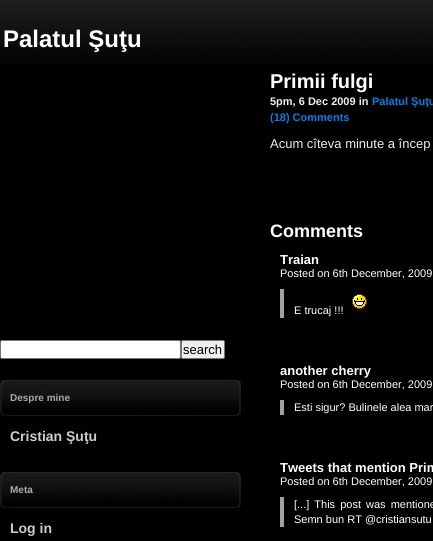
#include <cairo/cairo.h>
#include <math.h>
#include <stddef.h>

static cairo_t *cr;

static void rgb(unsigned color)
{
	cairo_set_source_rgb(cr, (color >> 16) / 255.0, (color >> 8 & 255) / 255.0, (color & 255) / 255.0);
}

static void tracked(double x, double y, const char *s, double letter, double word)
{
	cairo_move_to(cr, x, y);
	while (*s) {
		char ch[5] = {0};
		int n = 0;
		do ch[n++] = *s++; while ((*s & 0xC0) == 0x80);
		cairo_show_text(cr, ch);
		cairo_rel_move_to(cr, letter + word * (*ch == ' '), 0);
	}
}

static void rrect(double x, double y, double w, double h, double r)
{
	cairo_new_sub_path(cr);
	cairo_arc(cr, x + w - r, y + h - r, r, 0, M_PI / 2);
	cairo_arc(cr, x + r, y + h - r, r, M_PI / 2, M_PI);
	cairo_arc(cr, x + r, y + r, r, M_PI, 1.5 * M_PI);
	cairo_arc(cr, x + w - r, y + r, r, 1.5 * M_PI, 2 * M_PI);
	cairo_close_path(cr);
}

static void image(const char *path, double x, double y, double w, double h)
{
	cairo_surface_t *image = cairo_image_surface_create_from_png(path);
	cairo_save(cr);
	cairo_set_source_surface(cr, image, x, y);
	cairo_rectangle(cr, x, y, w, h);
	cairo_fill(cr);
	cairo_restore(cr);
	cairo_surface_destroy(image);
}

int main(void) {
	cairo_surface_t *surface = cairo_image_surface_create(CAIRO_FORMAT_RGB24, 433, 541);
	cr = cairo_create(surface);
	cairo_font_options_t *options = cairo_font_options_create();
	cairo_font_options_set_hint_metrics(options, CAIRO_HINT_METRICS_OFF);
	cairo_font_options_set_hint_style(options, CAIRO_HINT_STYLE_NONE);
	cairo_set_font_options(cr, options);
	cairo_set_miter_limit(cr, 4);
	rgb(0x000000);
	cairo_paint(cr);
	image("img/1.png", 0, 0, 433, 64);
	rgb(0xffffff);
	rrect(0.5, 340.5, 180, 18, 1.5);
	cairo_fill_preserve(cr);
	rgb(0x767676);
	cairo_set_line_width(cr, 1);
	cairo_stroke(cr);
	rgb(0xefefef);
	rrect(181.5, 340.5, 43, 18, 1.5);
	cairo_fill_preserve(cr);
	rgb(0x767676);
	cairo_stroke(cr);
	image("img/2.png", 0, 380, 241, 36);
	image("img/2.png", 0, 472, 241, 36);
	rgb(0xa1a1a1);
	cairo_rectangle(cr, 280, 289, 4, 29);
	cairo_fill(cr);
	image("img/3.png", 352, 294, 15, 15);
	cairo_rectangle(cr, 280, 400, 4, 15);
	cairo_fill(cr);
	cairo_rectangle(cr, 280, 497, 4, 30);
	cairo_fill(cr);
	cairo_select_font_face(cr, "Liberation Sans", CAIRO_FONT_SLANT_NORMAL, CAIRO_FONT_WEIGHT_BOLD);
	cairo_set_font_size(cr, 24);
	rgb(0xffffff);
	cairo_move_to(cr, 3, 47);
	cairo_show_text(cr, "Palatul Şuţu");
	cairo_select_font_face(cr, "Liberation Sans", CAIRO_FONT_SLANT_NORMAL, CAIRO_FONT_WEIGHT_NORMAL);
	cairo_set_font_size(cr, 13);
	rgb(0x000000);
	cairo_move_to(cr, 183, 354);
	cairo_show_text(cr, "search");
	cairo_select_font_face(cr, "Liberation Sans", CAIRO_FONT_SLANT_NORMAL, CAIRO_FONT_WEIGHT_BOLD);
	cairo_set_font_size(cr, 10);
	rgb(0xaaaaaa);
	cairo_move_to(cr, 10, 401);
	cairo_show_text(cr, "Despre mine");
	cairo_set_font_size(cr, 14);
	rgb(0xcccccc);
	cairo_move_to(cr, 10, 441);
	cairo_show_text(cr, "Cristian Şuţu");
	cairo_set_font_size(cr, 10);
	rgb(0xaaaaaa);
	cairo_move_to(cr, 10, 493);
	cairo_show_text(cr, "Meta");
	cairo_set_font_size(cr, 14);
	rgb(0xcccccc);
	cairo_move_to(cr, 10, 533);
	cairo_show_text(cr, "Log in");
	cairo_set_font_size(cr, 20);
	rgb(0xffffff);
	cairo_move_to(cr, 270, 88);
	cairo_show_text(cr, "Primii fulgi");
	cairo_set_font_size(cr, 11);
	rgb(0xeeeeee);
	cairo_move_to(cr, 270, 105);
	cairo_show_text(cr, "5pm, 6 Dec 2009 in");
	rgb(0x0080e4);
	cairo_move_to(cr, 372, 105);
	cairo_show_text(cr, "Palatul Şuţu");
	cairo_move_to(cr, 270, 121);
	cairo_show_text(cr, "(18) Comments");
	cairo_select_font_face(cr, "Liberation Sans", CAIRO_FONT_SLANT_NORMAL, CAIRO_FONT_WEIGHT_NORMAL);
	cairo_set_font_size(cr, 13);
	rgb(0xeeeeee);
	cairo_move_to(cr, 270, 148);
	cairo_show_text(cr, "Acum cîteva minute a încep");
	cairo_select_font_face(cr, "Liberation Sans", CAIRO_FONT_SLANT_NORMAL, CAIRO_FONT_WEIGHT_BOLD);
	cairo_set_font_size(cr, 18);
	rgb(0xffffff);
	cairo_move_to(cr, 270, 237);
	cairo_show_text(cr, "Comments");
	cairo_set_font_size(cr, 13);
	cairo_move_to(cr, 280, 264);
	cairo_show_text(cr, "Traian");
	cairo_select_font_face(cr, "Liberation Sans", CAIRO_FONT_SLANT_NORMAL, CAIRO_FONT_WEIGHT_NORMAL);
	cairo_set_font_size(cr, 11);
	cairo_move_to(cr, 280, 277);
	cairo_show_text(cr, "Posted on 6th December, 2009");
	cairo_move_to(cr, 294, 314);
	cairo_show_text(cr, "E trucaj !!!");
	cairo_select_font_face(cr, "Liberation Sans", CAIRO_FONT_SLANT_NORMAL, CAIRO_FONT_WEIGHT_BOLD);
	cairo_set_font_size(cr, 13);
	cairo_move_to(cr, 280, 375);
	cairo_show_text(cr, "another cherry");
	cairo_select_font_face(cr, "Liberation Sans", CAIRO_FONT_SLANT_NORMAL, CAIRO_FONT_WEIGHT_NORMAL);
	cairo_set_font_size(cr, 11);
	cairo_move_to(cr, 280, 388);
	cairo_show_text(cr, "Posted on 6th December, 2009");
	cairo_move_to(cr, 294, 411);
	cairo_show_text(cr, "Esti sigur? Bulinele alea mar");
	cairo_select_font_face(cr, "Liberation Sans", CAIRO_FONT_SLANT_NORMAL, CAIRO_FONT_WEIGHT_BOLD);
	cairo_set_font_size(cr, 13);
	cairo_move_to(cr, 280, 472);
	cairo_show_text(cr, "Tweets that mention Prim");
	cairo_select_font_face(cr, "Liberation Sans", CAIRO_FONT_SLANT_NORMAL, CAIRO_FONT_WEIGHT_NORMAL);
	cairo_set_font_size(cr, 11);
	cairo_move_to(cr, 280, 485);
	cairo_show_text(cr, "Posted on 6th December, 2009");
	tracked(294, 508, "[...] This post was mentione", 0, 2);
	cairo_move_to(cr, 294, 523);
	cairo_show_text(cr, "Semn bun RT @cristiansutu");
	cairo_surface_write_to_png(surface, "page.png");
	cairo_font_options_destroy(options);
	cairo_destroy(cr);
	cairo_surface_destroy(surface);
	return 0;
}
